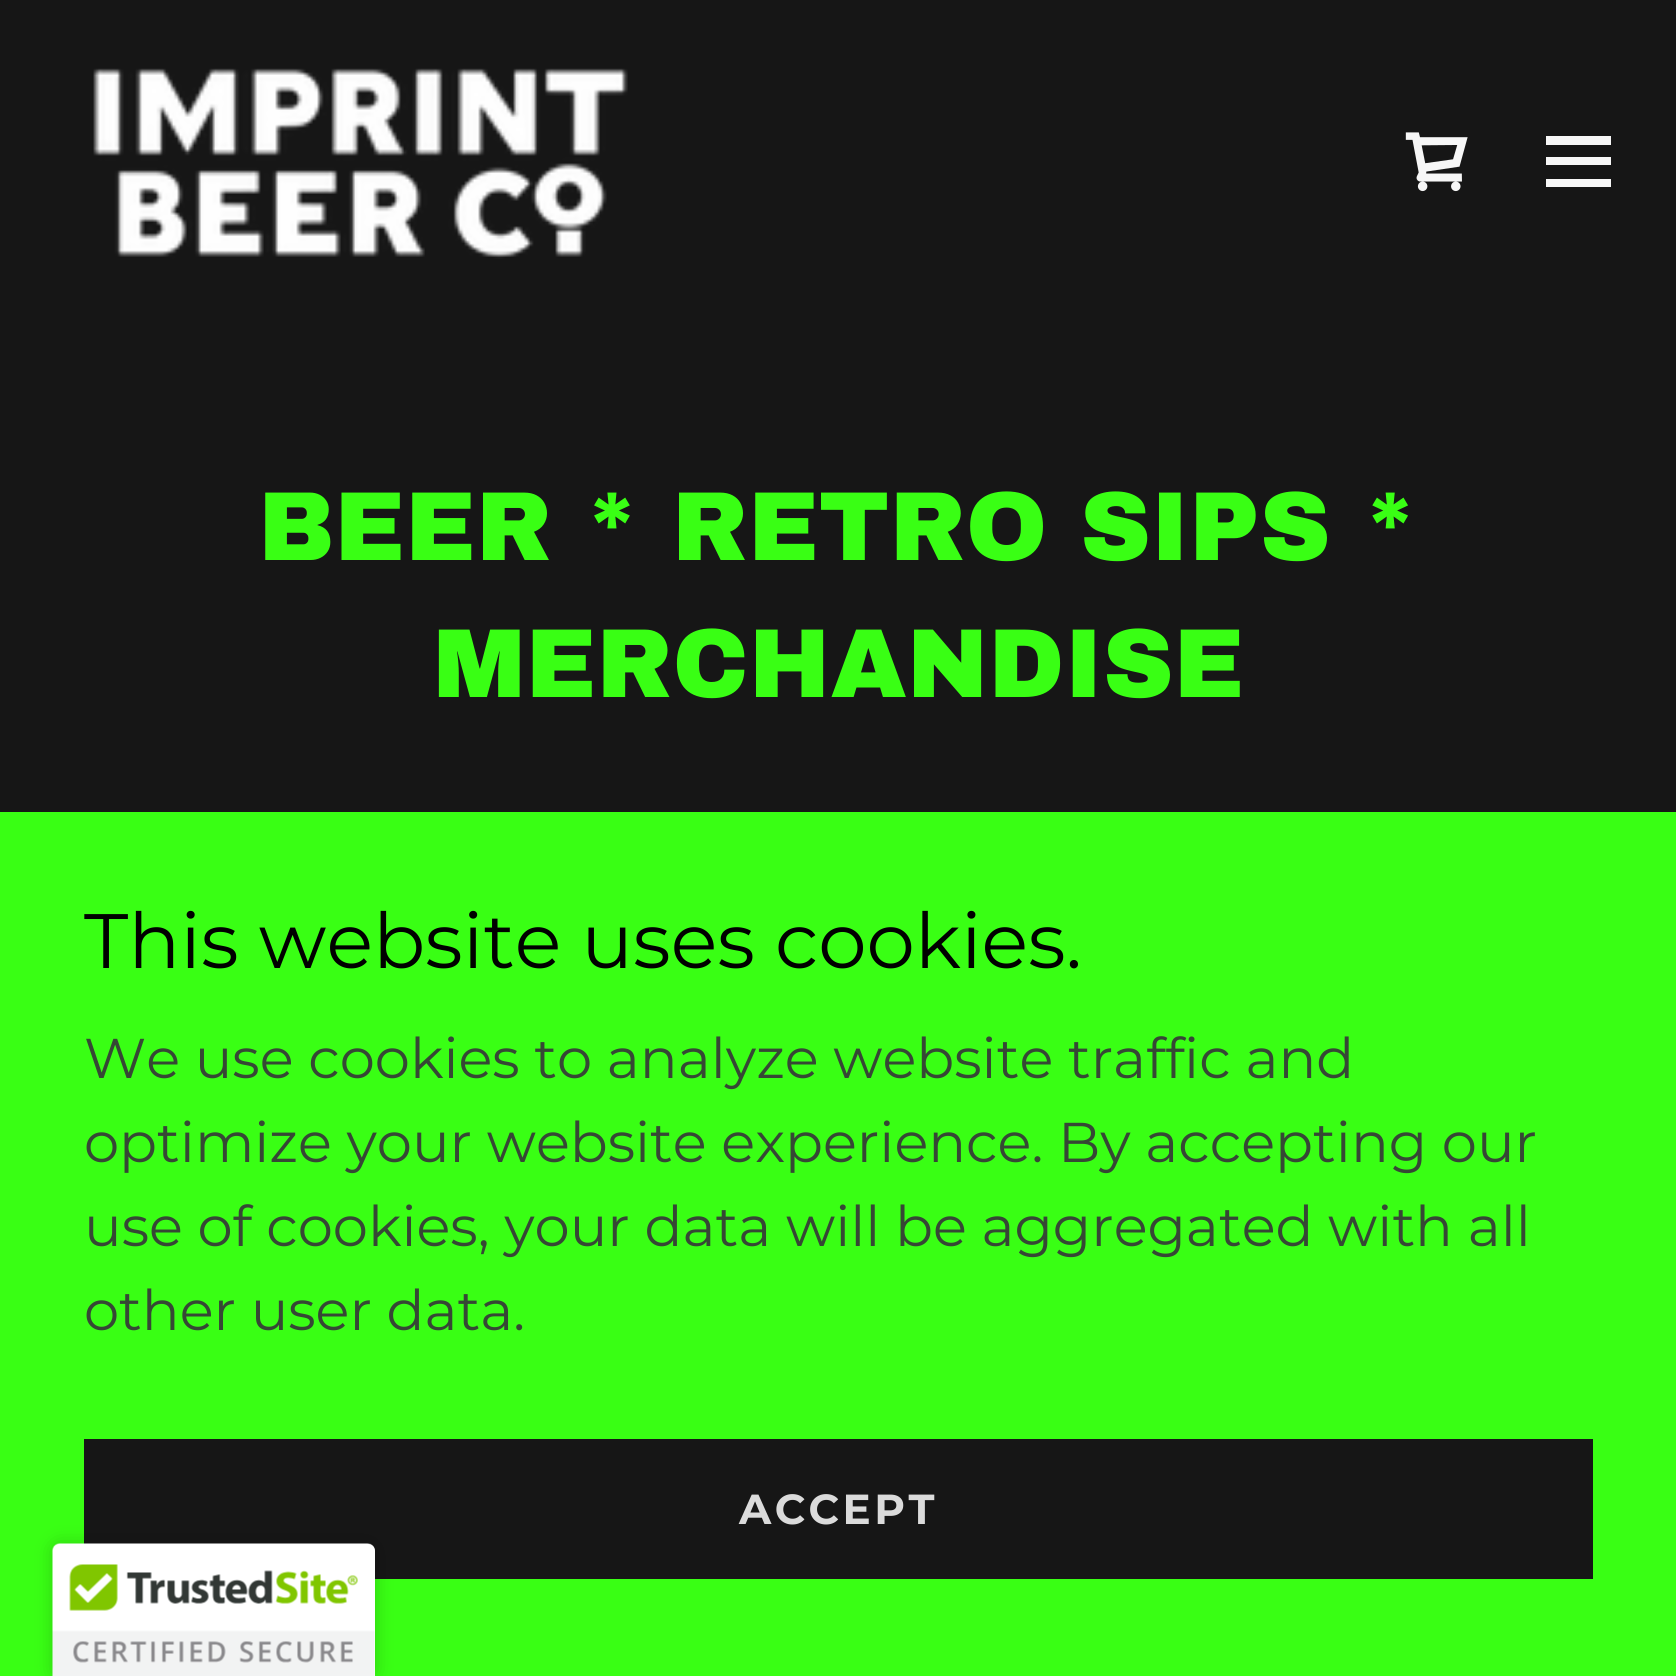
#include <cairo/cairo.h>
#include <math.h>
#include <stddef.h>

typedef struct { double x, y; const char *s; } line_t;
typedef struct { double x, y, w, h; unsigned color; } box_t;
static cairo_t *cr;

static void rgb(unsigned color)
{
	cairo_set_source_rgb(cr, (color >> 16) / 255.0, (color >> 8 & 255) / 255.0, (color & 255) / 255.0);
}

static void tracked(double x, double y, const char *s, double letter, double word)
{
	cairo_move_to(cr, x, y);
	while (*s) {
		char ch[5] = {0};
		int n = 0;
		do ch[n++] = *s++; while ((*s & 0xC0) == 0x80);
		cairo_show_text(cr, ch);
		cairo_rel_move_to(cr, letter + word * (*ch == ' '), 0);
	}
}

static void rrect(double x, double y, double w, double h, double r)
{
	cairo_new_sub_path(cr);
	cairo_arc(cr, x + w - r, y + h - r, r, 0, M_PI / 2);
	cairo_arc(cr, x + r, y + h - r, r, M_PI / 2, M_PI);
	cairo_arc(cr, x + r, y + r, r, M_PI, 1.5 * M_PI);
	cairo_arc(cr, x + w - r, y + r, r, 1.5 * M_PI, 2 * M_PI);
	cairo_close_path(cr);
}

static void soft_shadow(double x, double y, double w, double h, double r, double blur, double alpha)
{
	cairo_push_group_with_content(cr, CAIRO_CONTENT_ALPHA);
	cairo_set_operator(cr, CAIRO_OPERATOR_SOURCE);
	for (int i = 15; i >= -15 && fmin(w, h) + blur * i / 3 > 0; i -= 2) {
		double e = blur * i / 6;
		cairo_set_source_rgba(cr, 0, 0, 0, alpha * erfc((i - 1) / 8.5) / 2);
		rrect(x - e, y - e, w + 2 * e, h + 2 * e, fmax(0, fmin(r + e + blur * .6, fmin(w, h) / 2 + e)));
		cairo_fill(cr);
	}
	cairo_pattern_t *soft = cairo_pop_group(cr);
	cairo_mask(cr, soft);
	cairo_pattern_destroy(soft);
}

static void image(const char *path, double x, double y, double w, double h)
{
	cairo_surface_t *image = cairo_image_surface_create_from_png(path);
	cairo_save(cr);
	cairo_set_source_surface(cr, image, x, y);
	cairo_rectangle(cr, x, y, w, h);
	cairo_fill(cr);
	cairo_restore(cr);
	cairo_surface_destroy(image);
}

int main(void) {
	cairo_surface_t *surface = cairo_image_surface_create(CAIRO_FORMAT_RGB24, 1676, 1676);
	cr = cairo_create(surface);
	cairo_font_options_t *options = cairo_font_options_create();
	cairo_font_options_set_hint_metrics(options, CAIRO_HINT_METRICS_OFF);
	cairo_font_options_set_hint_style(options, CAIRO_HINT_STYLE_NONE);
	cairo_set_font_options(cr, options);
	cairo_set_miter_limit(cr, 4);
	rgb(0x161616);
	cairo_paint(cr);
	image("img/1.png", 93, 68, 535, 191);
	image("img/2.png", 1405, 132, 63, 60);
	{
		static const box_t items[] = {
			{1546, 136, 65, 9, 0xf7f7f7},
			{1546, 157, 65, 8, 0xf7f7f7},
			{1546, 179, 65, 8, 0xf7f7f7},
			{0, 812, 1676, 864, 0x39ff14},
			{84, 1439, 1509, 140, 0x161616},
		};
		for (size_t i = 0; i < sizeof items / sizeof *items; i++) {
			rgb(items[i].color);
			cairo_rectangle(cr, items[i].x, items[i].y, items[i].w, items[i].h);
			cairo_fill(cr);
		}
	}
	rgb(0x000000);
	soft_shadow(53, 1544, 322, 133, 7, 9, 0.2);
	rgb(0xffffff);
	cairo_new_path(cr);
	cairo_move_to(cr, 60, 1544);
	cairo_line_to(cr, 368, 1544);
	cairo_curve_to(cr, 372, 1544, 375, 1547, 375, 1551);
	cairo_line_to(cr, 375, 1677);
	cairo_line_to(cr, 53, 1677);
	cairo_line_to(cr, 53, 1551);
	cairo_curve_to(cr, 53, 1547, 56, 1544, 60, 1544);
	cairo_close_path(cr);
	cairo_fill(cr);
	image("img/3.png", 52, 1543, 323, 133);
	cairo_select_font_face(cr, "Archivo Black Black", CAIRO_FONT_SLANT_NORMAL, CAIRO_FONT_WEIGHT_NORMAL);
	cairo_set_font_size(cr, 98);
	rgb(0x39ff14);
	cairo_move_to(cr, 258, 560);
	cairo_show_text(cr, "BEER * RETRO SIPS *");
	cairo_move_to(cr, 433, 697);
	cairo_show_text(cr, "MERCHANDISE");
	cairo_select_font_face(cr, "Montserrat", CAIRO_FONT_SLANT_NORMAL, CAIRO_FONT_WEIGHT_NORMAL);
	cairo_set_font_size(cr, 77);
	rgb(0x000000);
	cairo_move_to(cr, 84, 968);
	cairo_show_text(cr, "This website uses cookies.");
	cairo_set_font_size(cr, 56);
	rgb(0x364735);
	{
		static const line_t items[] = {
			{84, 1078, "We use cookies to analyze website traffic and"},
			{84, 1162, "optimize your website experience. By accepting our"},
			{84, 1246, "use of cookies, your data will be aggregated with all"},
			{84, 1330, "other user data."},
		};
		for (size_t i = 0; i < sizeof items / sizeof *items; i++) {
			cairo_move_to(cr, items[i].x, items[i].y);
			cairo_show_text(cr, items[i].s);
		}
	}
	cairo_select_font_face(cr, "Montserrat", CAIRO_FONT_SLANT_NORMAL, CAIRO_FONT_WEIGHT_BOLD);
	cairo_set_font_size(cr, 42);
	rgb(0xdbdbdb);
	tracked(739, 1524, "ACCEPT", 3.5, 0);
	cairo_surface_write_to_png(surface, "page.png");
	cairo_font_options_destroy(options);
	cairo_destroy(cr);
	cairo_surface_destroy(surface);
	return 0;
}
